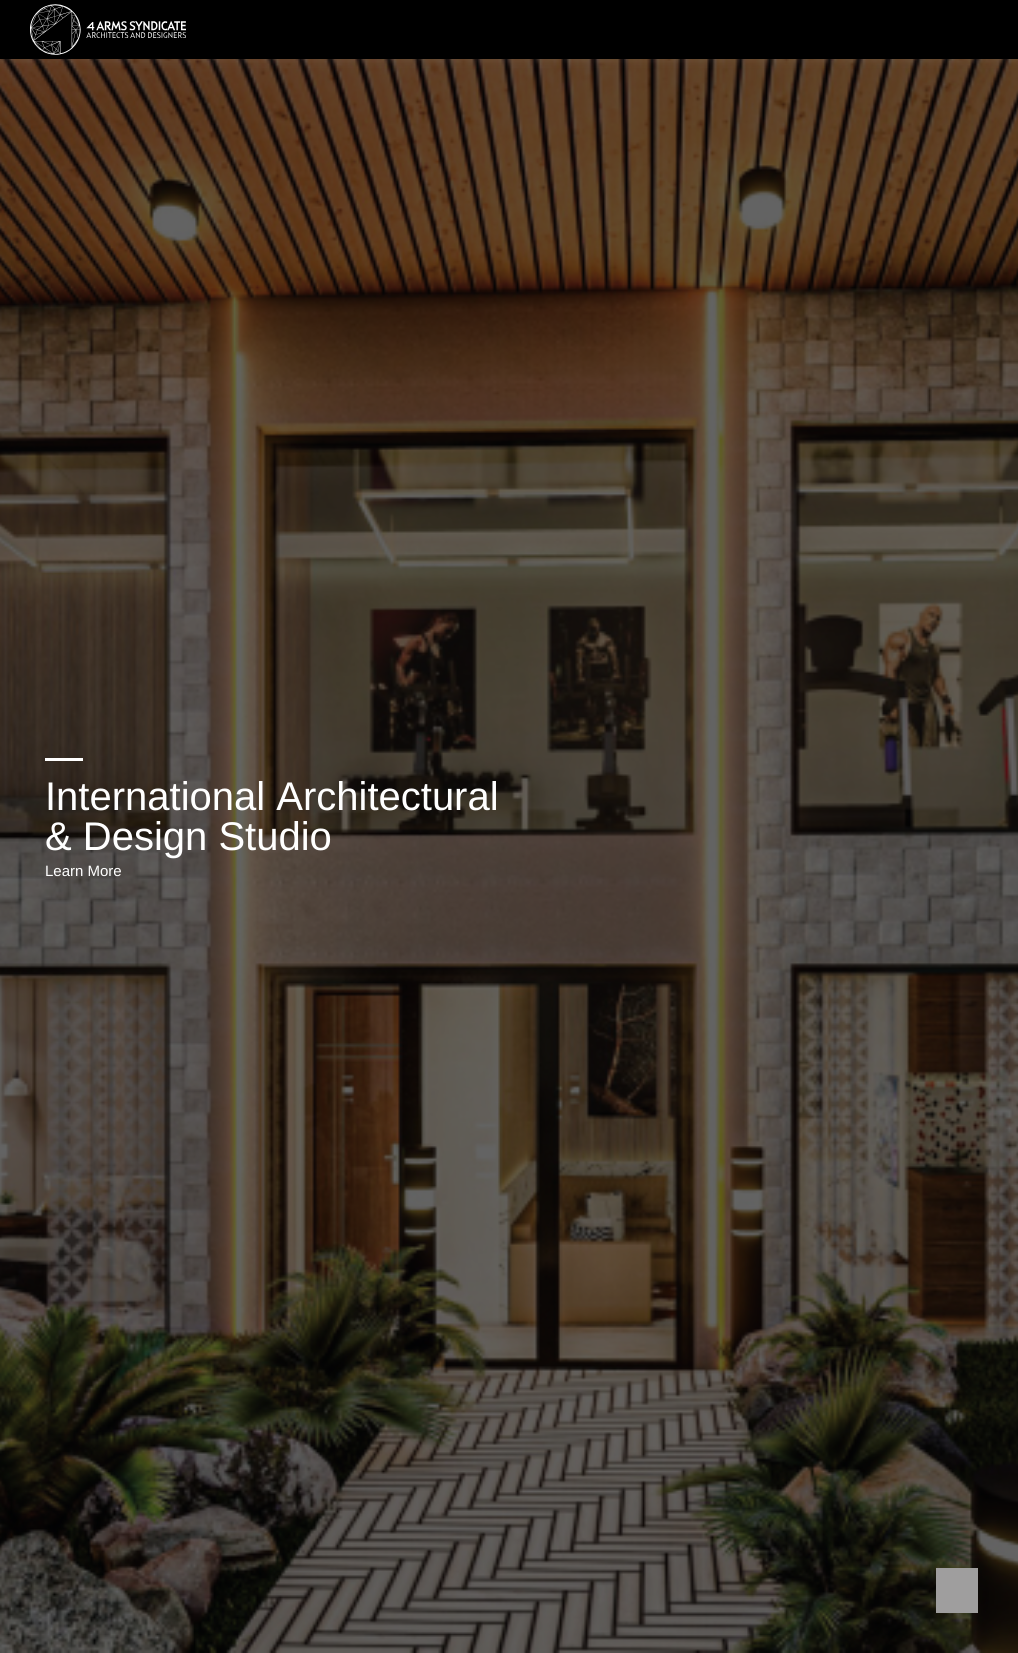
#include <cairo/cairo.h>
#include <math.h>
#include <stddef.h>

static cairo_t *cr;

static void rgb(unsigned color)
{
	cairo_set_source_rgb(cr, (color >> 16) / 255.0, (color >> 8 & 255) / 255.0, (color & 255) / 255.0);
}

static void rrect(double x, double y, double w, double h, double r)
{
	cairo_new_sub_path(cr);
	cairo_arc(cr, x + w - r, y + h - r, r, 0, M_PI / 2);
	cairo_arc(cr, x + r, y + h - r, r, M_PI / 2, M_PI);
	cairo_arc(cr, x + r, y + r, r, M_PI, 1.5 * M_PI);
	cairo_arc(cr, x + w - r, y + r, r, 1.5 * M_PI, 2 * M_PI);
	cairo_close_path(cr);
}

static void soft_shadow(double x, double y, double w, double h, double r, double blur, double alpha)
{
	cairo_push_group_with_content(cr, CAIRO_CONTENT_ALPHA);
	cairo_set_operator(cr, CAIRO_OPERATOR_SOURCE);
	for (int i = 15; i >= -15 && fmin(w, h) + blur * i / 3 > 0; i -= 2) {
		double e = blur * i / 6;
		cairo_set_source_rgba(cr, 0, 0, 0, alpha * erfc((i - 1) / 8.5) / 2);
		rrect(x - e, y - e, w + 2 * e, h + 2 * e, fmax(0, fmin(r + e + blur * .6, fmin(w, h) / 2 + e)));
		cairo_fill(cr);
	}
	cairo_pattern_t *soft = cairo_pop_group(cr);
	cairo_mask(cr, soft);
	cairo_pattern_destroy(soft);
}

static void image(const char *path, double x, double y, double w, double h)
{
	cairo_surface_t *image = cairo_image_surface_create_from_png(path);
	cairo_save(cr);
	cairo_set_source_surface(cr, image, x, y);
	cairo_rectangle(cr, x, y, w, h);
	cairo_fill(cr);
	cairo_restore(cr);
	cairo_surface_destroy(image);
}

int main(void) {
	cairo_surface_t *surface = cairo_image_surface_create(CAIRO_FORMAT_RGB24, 1018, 1653);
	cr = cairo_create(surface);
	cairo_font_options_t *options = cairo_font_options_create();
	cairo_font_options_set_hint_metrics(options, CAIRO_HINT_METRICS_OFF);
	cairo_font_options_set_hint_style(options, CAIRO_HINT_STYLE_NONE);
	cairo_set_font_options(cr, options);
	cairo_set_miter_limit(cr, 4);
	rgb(0xffffff);
	cairo_paint(cr);
	image("img/2.png", 0, 59, 1018, 1594);
	soft_shadow(1, 0, 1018, 59, 0, 5, 0.1);
	rgb(0x000000);
	cairo_rectangle(cr, 0, 0, 1018, 59);
	cairo_fill(cr);
	image("img/1.png", 30, 4, 156, 51);
	rgb(0xffffff);
	cairo_rectangle(cr, 45, 758, 38, 3);
	cairo_fill(cr);
	rgb(0x9f9e9e);
	cairo_rectangle(cr, 936, 1568, 42, 45);
	cairo_fill(cr);
	cairo_select_font_face(cr, "Liberation Sans", CAIRO_FONT_SLANT_NORMAL, CAIRO_FONT_WEIGHT_NORMAL);
	cairo_set_font_size(cr, 40);
	rgb(0xffffff);
	cairo_move_to(cr, 45, 810);
	cairo_show_text(cr, "International Architectural");
	cairo_move_to(cr, 45, 850);
	cairo_show_text(cr, "& Design Studio");
	cairo_set_font_size(cr, 15);
	cairo_move_to(cr, 45, 876);
	cairo_show_text(cr, "Learn More");
	cairo_surface_write_to_png(surface, "page.png");
	cairo_font_options_destroy(options);
	cairo_destroy(cr);
	cairo_surface_destroy(surface);
	return 0;
}
